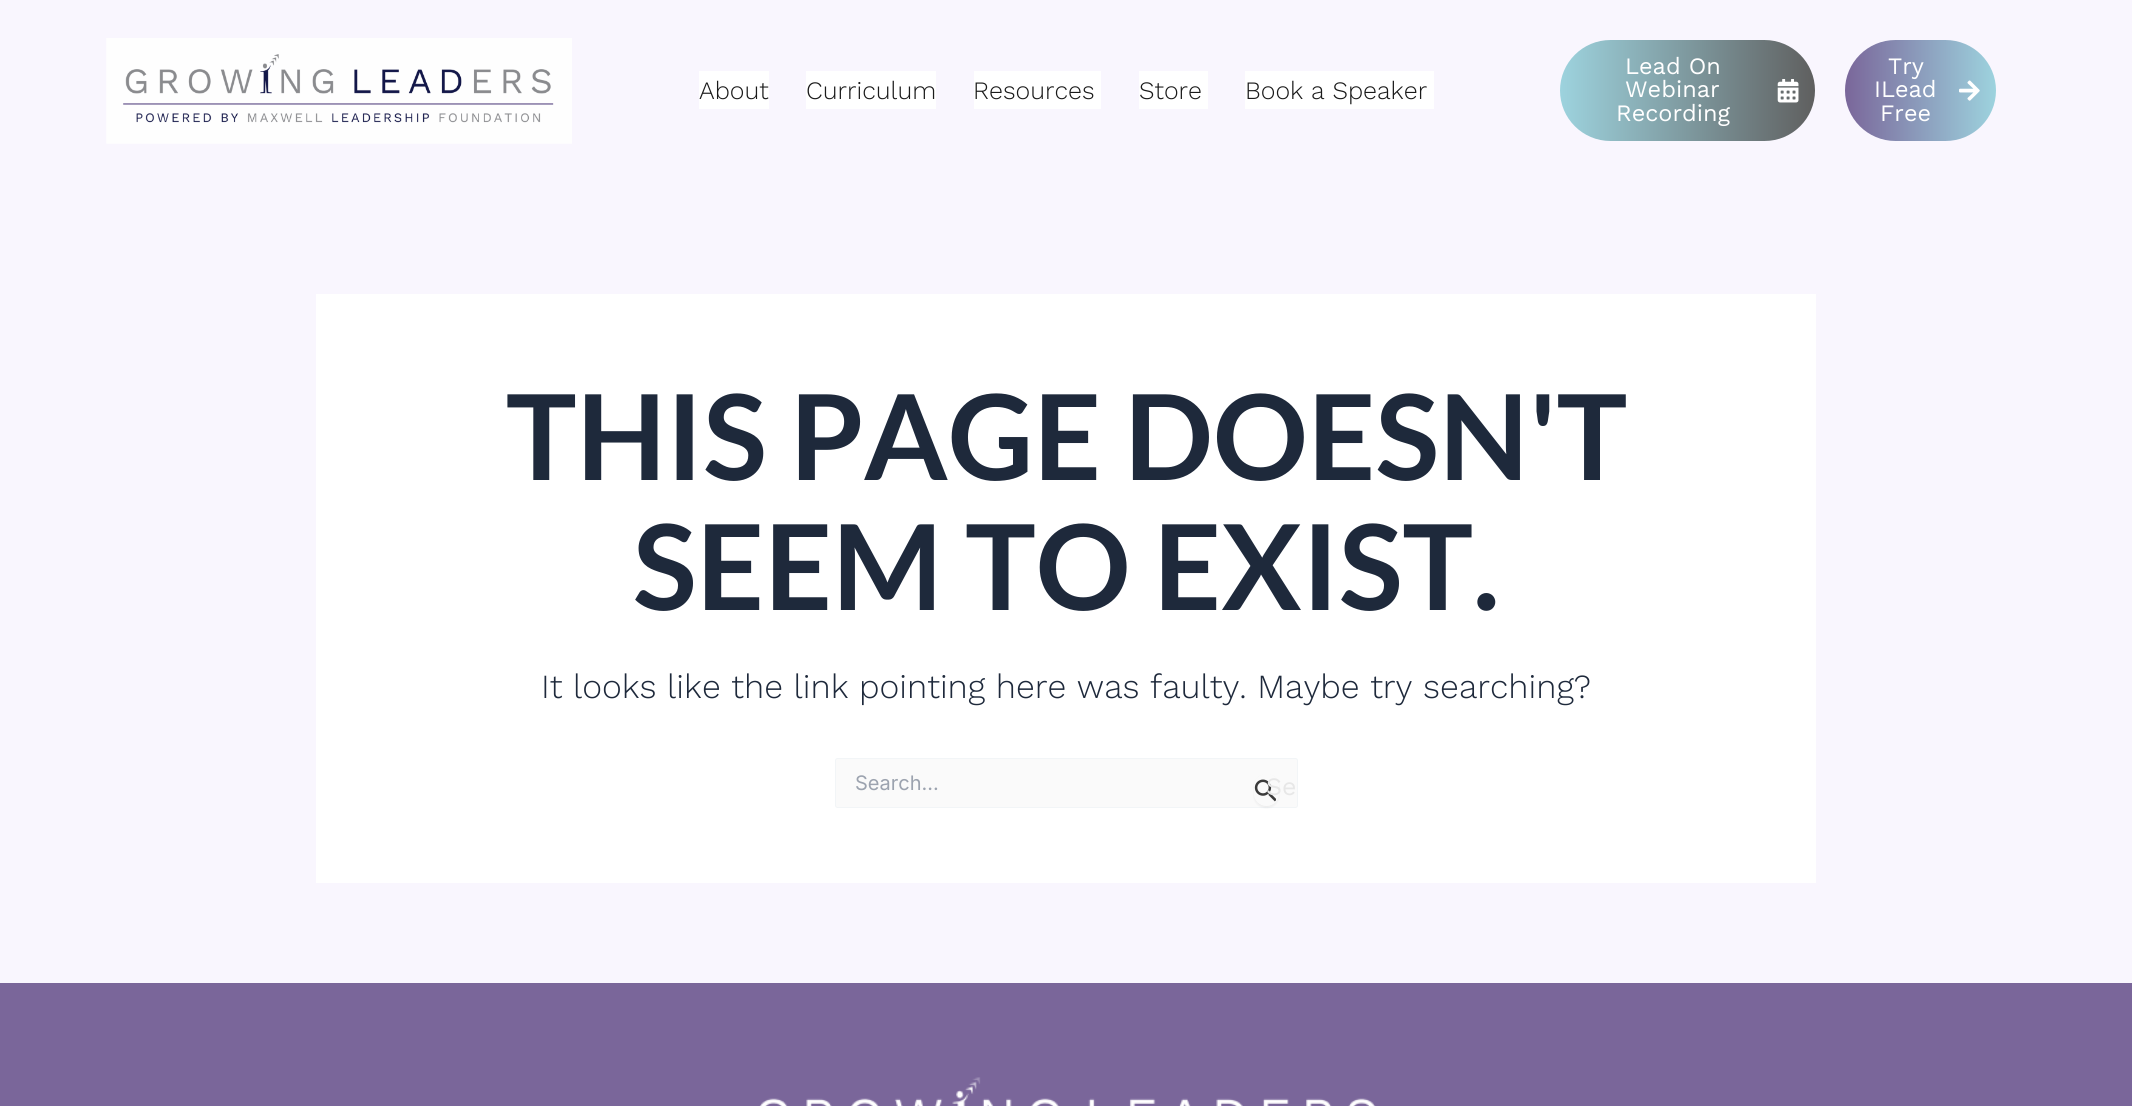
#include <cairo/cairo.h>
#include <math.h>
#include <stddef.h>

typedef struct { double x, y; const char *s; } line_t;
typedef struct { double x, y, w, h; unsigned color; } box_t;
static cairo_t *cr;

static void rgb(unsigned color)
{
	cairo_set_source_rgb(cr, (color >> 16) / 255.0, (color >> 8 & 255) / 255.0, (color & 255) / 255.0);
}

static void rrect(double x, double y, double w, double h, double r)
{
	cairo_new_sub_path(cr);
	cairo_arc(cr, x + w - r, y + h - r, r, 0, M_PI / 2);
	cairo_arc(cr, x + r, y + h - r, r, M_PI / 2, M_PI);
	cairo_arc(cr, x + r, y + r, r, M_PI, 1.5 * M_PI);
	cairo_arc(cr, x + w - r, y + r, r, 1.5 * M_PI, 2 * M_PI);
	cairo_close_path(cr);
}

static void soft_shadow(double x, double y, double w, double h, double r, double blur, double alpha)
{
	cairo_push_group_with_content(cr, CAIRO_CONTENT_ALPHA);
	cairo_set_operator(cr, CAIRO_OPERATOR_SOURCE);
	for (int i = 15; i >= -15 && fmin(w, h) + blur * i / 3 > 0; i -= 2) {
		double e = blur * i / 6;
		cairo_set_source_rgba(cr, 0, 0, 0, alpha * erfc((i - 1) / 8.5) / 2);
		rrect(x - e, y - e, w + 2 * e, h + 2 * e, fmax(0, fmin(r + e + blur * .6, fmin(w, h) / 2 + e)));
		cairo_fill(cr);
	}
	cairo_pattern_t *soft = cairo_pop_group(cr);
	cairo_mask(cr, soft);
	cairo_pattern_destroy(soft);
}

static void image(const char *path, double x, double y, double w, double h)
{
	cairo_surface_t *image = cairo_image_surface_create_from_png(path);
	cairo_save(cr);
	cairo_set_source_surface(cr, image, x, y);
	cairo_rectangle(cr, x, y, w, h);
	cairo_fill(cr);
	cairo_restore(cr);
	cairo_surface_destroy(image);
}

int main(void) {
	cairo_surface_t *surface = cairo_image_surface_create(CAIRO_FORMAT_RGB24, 2132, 1106);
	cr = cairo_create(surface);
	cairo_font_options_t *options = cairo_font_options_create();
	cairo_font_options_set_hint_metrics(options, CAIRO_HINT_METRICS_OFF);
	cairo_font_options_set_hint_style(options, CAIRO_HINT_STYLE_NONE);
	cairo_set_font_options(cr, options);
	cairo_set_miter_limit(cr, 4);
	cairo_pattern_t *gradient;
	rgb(0xf9f6fe);
	cairo_paint(cr);
	image("img/1.png", 106, 38, 466, 106);
	{
		static const box_t items[] = {
			{699, 71, 70, 38, 0xffffff},
			{806, 71, 130, 38, 0xffffff},
			{974, 71, 127, 38, 0xffffff},
			{1139, 71, 69, 38, 0xffffff},
			{1245, 71, 189, 38, 0xffffff},
		};
		for (size_t i = 0; i < sizeof items / sizeof *items; i++) {
			rgb(items[i].color);
			cairo_rectangle(cr, items[i].x, items[i].y, items[i].w, items[i].h);
			cairo_fill(cr);
		}
	}
	gradient = cairo_pattern_create_linear(1560, 91, 1815, 91);
	cairo_pattern_add_color_stop_rgba(gradient, 0, 0.616, 0.827, 0.871, 1);
	cairo_pattern_add_color_stop_rgba(gradient, 1, 0.373, 0.373, 0.373, 1);
	cairo_set_source(cr, gradient);
	cairo_pattern_destroy(gradient);
	rrect(1560, 40, 255, 101, 50.5);
	cairo_fill(cr);
	image("img/2.png", 1777, 79, 22, 24);
	gradient = cairo_pattern_create_linear(1845, 91, 1996, 91);
	cairo_pattern_add_color_stop_rgba(gradient, 0, 0.478, 0.4, 0.604, 1);
	cairo_pattern_add_color_stop_rgba(gradient, 1, 0.616, 0.827, 0.871, 1);
	cairo_set_source(cr, gradient);
	cairo_pattern_destroy(gradient);
	rrect(1845, 40, 151, 101, 50.5);
	cairo_fill(cr);
	image("img/3.png", 1959, 80, 21, 21);
	rgb(0xffffff);
	cairo_rectangle(cr, 316, 294, 1500, 589);
	cairo_fill(cr);
	rgb(0xfafafa);
	rrect(835.5, 758.5, 462, 49, 2);
	cairo_fill_preserve(cr);
	rgb(0xf2f5f7);
	cairo_set_line_width(cr, 1);
	cairo_stroke(cr);
	cairo_save(cr);
	cairo_set_fill_rule(cr, CAIRO_FILL_RULE_EVEN_ODD);
	cairo_new_path(cr);
	cairo_move_to(cr, 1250, 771);
	cairo_line_to(cr, 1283, 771);
	cairo_line_to(cr, 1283, 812);
	cairo_line_to(cr, 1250, 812);
	cairo_close_path(cr);
	cairo_move_to(cr, 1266.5, 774);
	cairo_curve_to(cr, 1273.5, 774, 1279, 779.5, 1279, 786.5);
	cairo_line_to(cr, 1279, 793.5);
	cairo_curve_to(cr, 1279, 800.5, 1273.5, 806, 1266.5, 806);
	cairo_curve_to(cr, 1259.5, 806, 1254, 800.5, 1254, 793.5);
	cairo_line_to(cr, 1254, 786.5);
	cairo_curve_to(cr, 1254, 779.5, 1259.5, 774, 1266.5, 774);
	cairo_close_path(cr);
	cairo_clip(cr);
	rgb(0x000000);
	soft_shadow(1254, 775, 25, 33, 12.5, 1, 0.05);
	cairo_restore(cr);
	image("img/4.png", 1254, 779, 22, 23);
	rgb(0x7a669a);
	cairo_rectangle(cr, 0, 983, 2132, 123);
	cairo_fill(cr);
	image("img/5.png", 759, 1077, 617, 29);
	cairo_select_font_face(cr, "Work Sans Light", CAIRO_FONT_SLANT_NORMAL, CAIRO_FONT_WEIGHT_NORMAL);
	cairo_set_font_size(cr, 25);
	rgb(0x1a1a1a);
	{
		static const line_t items[] = {
			{699, 99, "About"},
			{806, 99, "Curriculum"},
			{973, 99, "Resources"},
			{1139, 99, "Store"},
			{1245, 99, "Book a Speaker"},
		};
		for (size_t i = 0; i < sizeof items / sizeof *items; i++) {
			cairo_move_to(cr, items[i].x, items[i].y);
			cairo_show_text(cr, items[i].s);
		}
	}
	cairo_select_font_face(cr, "Work Sans", CAIRO_FONT_SLANT_NORMAL, CAIRO_FONT_WEIGHT_NORMAL);
	cairo_set_font_size(cr, 23.5);
	rgb(0xffffff);
	{
		static const line_t items[] = {
			{1625, 74, "Lead On"},
			{1625, 97, "Webinar"},
			{1616, 121, "Recording"},
			{1888, 74, "Try"},
			{1874, 97, "ILead"},
			{1880, 121, "Free"},
		};
		for (size_t i = 0; i < sizeof items / sizeof *items; i++) {
			cairo_move_to(cr, items[i].x, items[i].y);
			cairo_show_text(cr, items[i].s);
		}
	}
	cairo_select_font_face(cr, "Lato", CAIRO_FONT_SLANT_NORMAL, CAIRO_FONT_WEIGHT_BOLD);
	cairo_set_font_size(cr, 118.5);
	rgb(0x1e293b);
	cairo_move_to(cr, 506, 480);
	cairo_show_text(cr, "THIS PAGE DOESN'T");
	cairo_move_to(cr, 633, 610);
	cairo_show_text(cr, "SEEM TO EXIST.");
	cairo_select_font_face(cr, "Work Sans Light", CAIRO_FONT_SLANT_NORMAL, CAIRO_FONT_WEIGHT_NORMAL);
	cairo_set_font_size(cr, 33.75);
	cairo_move_to(cr, 541, 698);
	cairo_show_text(cr, "It looks like the link pointing here was faulty. Maybe try searching?");
	cairo_select_font_face(cr, "Inter", CAIRO_FONT_SLANT_NORMAL, CAIRO_FONT_WEIGHT_NORMAL);
	cairo_set_font_size(cr, 20);
	rgb(0x9ca3af);
	cairo_move_to(cr, 855, 790);
	cairo_show_text(cr, "Search...");
	cairo_select_font_face(cr, "Work Sans", CAIRO_FONT_SLANT_NORMAL, CAIRO_FONT_WEIGHT_NORMAL);
	cairo_set_font_size(cr, 25);
	rgb(0xe7e7e7);
	cairo_move_to(cr, 1266, 795);
	cairo_show_text(cr, "Se");
	cairo_surface_write_to_png(surface, "page.png");
	cairo_font_options_destroy(options);
	cairo_destroy(cr);
	cairo_surface_destroy(surface);
	return 0;
}
